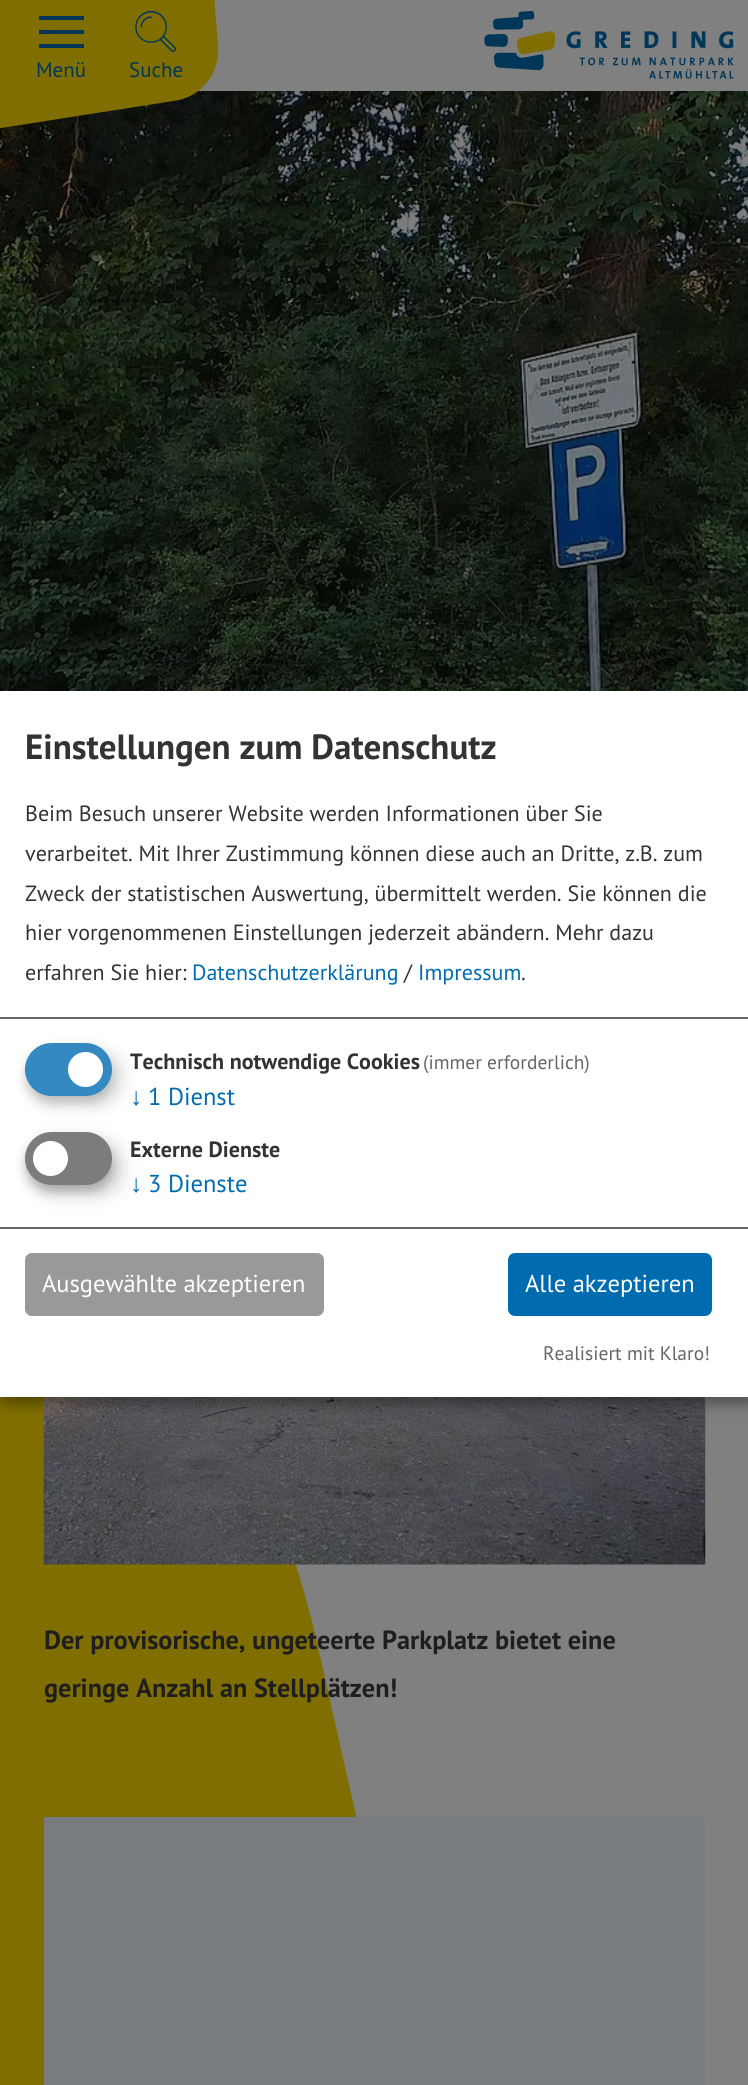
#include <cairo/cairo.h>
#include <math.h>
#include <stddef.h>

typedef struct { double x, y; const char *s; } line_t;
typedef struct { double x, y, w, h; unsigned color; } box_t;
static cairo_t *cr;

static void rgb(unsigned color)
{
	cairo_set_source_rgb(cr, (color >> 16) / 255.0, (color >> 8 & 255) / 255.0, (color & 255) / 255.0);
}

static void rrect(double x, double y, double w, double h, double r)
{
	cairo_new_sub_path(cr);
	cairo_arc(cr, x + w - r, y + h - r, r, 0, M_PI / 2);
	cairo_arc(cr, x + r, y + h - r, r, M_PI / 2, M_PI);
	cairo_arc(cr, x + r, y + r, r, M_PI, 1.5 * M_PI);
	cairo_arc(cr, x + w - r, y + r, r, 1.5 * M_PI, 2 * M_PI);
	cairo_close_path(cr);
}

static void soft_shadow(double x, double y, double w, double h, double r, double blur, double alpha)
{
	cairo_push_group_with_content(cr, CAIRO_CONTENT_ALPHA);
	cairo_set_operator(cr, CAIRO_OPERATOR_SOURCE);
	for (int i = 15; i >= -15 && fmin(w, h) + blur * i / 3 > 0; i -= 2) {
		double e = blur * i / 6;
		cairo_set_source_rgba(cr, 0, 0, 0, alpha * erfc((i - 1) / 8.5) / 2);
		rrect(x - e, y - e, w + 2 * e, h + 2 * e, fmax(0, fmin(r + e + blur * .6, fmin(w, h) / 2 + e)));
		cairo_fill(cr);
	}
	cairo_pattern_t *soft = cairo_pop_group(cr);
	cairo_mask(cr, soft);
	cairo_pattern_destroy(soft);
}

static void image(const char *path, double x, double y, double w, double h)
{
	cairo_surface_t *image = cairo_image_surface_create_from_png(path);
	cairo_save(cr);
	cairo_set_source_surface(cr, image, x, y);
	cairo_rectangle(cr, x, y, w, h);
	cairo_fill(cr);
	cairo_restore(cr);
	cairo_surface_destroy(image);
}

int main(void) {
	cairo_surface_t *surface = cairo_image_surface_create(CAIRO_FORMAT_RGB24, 748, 2085);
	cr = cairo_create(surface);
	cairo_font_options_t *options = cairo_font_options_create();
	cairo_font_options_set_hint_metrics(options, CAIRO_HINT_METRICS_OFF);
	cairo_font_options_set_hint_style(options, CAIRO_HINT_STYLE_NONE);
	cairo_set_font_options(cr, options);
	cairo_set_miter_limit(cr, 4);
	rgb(0x808080);
	cairo_paint(cr);
	image("img/3.png", 0, 91, 748, 600);
	rgb(0x806f00);
	cairo_new_path(cr);
	cairo_move_to(cr, 211, -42);
	cairo_curve_to(cr, 208, -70, 186, -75, 159, -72);
	cairo_line_to(cr, -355, -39);
	cairo_curve_to(cr, -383, -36, -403, -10, -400, 19);
	cairo_line_to(cr, -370, 113);
	cairo_curve_to(cr, -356, 154, -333, 179, -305, 176);
	cairo_line_to(cr, 173, 101);
	cairo_curve_to(cr, 201, 98, 221, 73, 218, 44);
	cairo_close_path(cr);
	cairo_fill(cr);
	{
		static const box_t items[] = {
			{39, 16, 45, 4, 0x003658},
			{39, 30, 45, 4, 0x003658},
			{39, 44, 45, 4, 0x003658},
		};
		for (size_t i = 0; i < sizeof items / sizeof *items; i++) {
			rgb(items[i].color);
			cairo_rectangle(cr, items[i].x, items[i].y, items[i].w, items[i].h);
			cairo_fill(cr);
		}
	}
	image("img/1.png", 135, 11, 42, 41);
	image("img/2.png", 484, 10, 250, 69);
	rgb(0x806f00);
	cairo_new_path(cr);
	cairo_move_to(cr, -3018, 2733);
	cairo_line_to(cr, -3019, 1571);
	cairo_curve_to(cr, -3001, 1453, -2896, 1361, -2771, 1341);
	cairo_line_to(cr, -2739, 1338);
	cairo_curve_to(cr, -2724, 1337, -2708, 1337, -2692, 1339);
	cairo_line_to(cr, 31, 1330);
	cairo_curve_to(cr, 188, 1344, 260, 1417, 314, 1629);
	cairo_line_to(cr, 433, 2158);
	cairo_line_to(cr, 435, 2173);
	cairo_curve_to(cr, 440, 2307, 202, 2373, 45, 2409);
	cairo_line_to(cr, -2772, 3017);
	cairo_curve_to(cr, -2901, 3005, -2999, 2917, -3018, 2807);
	cairo_line_to(cr, -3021, 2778);
	cairo_curve_to(cr, -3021, 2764, -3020, 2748, -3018, 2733);
	cairo_close_path(cr);
	cairo_fill(cr);
	image("img/4.png", 43, 1397, 663, 168);
	rgb(0x000000);
	soft_shadow(9, 700, 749, 705, 0, 9, 0.19);
	soft_shadow(0, 698, 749, 706, 0, 5, 0.2);
	rgb(0xffffff);
	cairo_rectangle(cr, 0, 691, 748, 706);
	cairo_fill(cr);
	rgb(0x666666);
	cairo_rectangle(cr, 0, 1017, 748, 2);
	cairo_fill(cr);
	rgb(0x000000);
	soft_shadow(33, 1052, 88, 52, 26, 9, 0.15);
	rgb(0x333333);
	soft_shadow(25, 1050, 87, 53, 26.5, 5, 0.2);
	rgb(0x3389c0);
	rrect(25, 1043, 87, 53, 26.5);
	cairo_fill(cr);
	rgb(0xffffff);
	cairo_arc(cr, 85.5, 1069.5, 17.5, 0, 2 * M_PI);
	cairo_fill(cr);
	rgb(0x000000);
	soft_shadow(33, 1141, 88, 53, 26.5, 9, 0.19);
	soft_shadow(25, 1139, 87, 53, 26.5, 5, 0.2);
	rgb(0x7c7c7c);
	rrect(25, 1132, 87, 53, 26.5);
	cairo_fill(cr);
	rgb(0xffffff);
	cairo_arc(cr, 50.5, 1158.5, 17.5, 0, 2 * M_PI);
	cairo_fill(cr);
	rgb(0x666666);
	cairo_rectangle(cr, 0, 1227, 748, 2);
	cairo_fill(cr);
	rgb(0x999999);
	rrect(25, 1253, 299, 63, 7);
	cairo_fill(cr);
	rgb(0x006cb0);
	rrect(508, 1253, 204, 63, 7);
	cairo_fill(cr);
	rgb(0x797c7e);
	cairo_rectangle(cr, 44, 1817, 661, 268);
	cairo_fill(cr);
	cairo_select_font_face(cr, "PT Sans", CAIRO_FONT_SLANT_NORMAL, CAIRO_FONT_WEIGHT_NORMAL);
	cairo_set_font_size(cr, 21);
	rgb(0x003658);
	cairo_move_to(cr, 36, 77);
	cairo_show_text(cr, "Menü");
	cairo_move_to(cr, 129, 77);
	cairo_show_text(cr, "Suche");
	cairo_select_font_face(cr, "PT Sans", CAIRO_FONT_SLANT_NORMAL, CAIRO_FONT_WEIGHT_BOLD);
	cairo_set_font_size(cr, 35);
	rgb(0x333333);
	cairo_move_to(cr, 25, 759);
	cairo_show_text(cr, "Einstellungen zum Datenschutz");
	cairo_select_font_face(cr, "PT Sans", CAIRO_FONT_SLANT_NORMAL, CAIRO_FONT_WEIGHT_NORMAL);
	cairo_set_font_size(cr, 22.05);
	{
		static const line_t items[] = {
			{25, 821, "Beim Besuch unserer Website werden Informationen über Sie"},
			{25, 861, "verarbeitet. Mit Ihrer Zustimmung können diese auch an Dritte, z.B. zum"},
			{25, 901, "Zweck der statistischen Auswertung, übermittelt werden. Sie können die"},
			{25, 940, "hier vorgenommenen Einstellungen jederzeit abändern. Mehr dazu"},
			{25, 980, "erfahren Sie hier:"},
		};
		for (size_t i = 0; i < sizeof items / sizeof *items; i++) {
			cairo_move_to(cr, items[i].x, items[i].y);
			cairo_show_text(cr, items[i].s);
		}
	}
	rgb(0x006cb0);
	cairo_move_to(cr, 192, 980);
	cairo_show_text(cr, "Datenschutzerklärung");
	rgb(0x333333);
	cairo_move_to(cr, 404, 980);
	cairo_show_text(cr, "/");
	rgb(0x006cb0);
	cairo_move_to(cr, 418, 980);
	cairo_show_text(cr, "Impressum");
	rgb(0x333333);
	cairo_move_to(cr, 521, 980);
	cairo_show_text(cr, ".");
	cairo_select_font_face(cr, "PT Sans", CAIRO_FONT_SLANT_NORMAL, CAIRO_FONT_WEIGHT_BOLD);
	cairo_move_to(cr, 130, 1069);
	cairo_show_text(cr, "Technisch notwendige Cookies");
	cairo_select_font_face(cr, "PT Sans", CAIRO_FONT_SLANT_NORMAL, CAIRO_FONT_WEIGHT_NORMAL);
	cairo_set_font_size(cr, 19.5);
	rgb(0x666666);
	cairo_move_to(cr, 423, 1069);
	cairo_show_text(cr, "(immer erforderlich)");
	cairo_select_font_face(cr, "Liberation Sans", CAIRO_FONT_SLANT_NORMAL, CAIRO_FONT_WEIGHT_NORMAL);
	cairo_set_font_size(cr, 24.5);
	rgb(0x006cb0);
	cairo_move_to(cr, 130, 1105);
	cairo_show_text(cr, "↓");
	cairo_select_font_face(cr, "PT Sans", CAIRO_FONT_SLANT_NORMAL, CAIRO_FONT_WEIGHT_NORMAL);
	cairo_move_to(cr, 148, 1105);
	cairo_show_text(cr, "1 Dienst");
	cairo_select_font_face(cr, "PT Sans", CAIRO_FONT_SLANT_NORMAL, CAIRO_FONT_WEIGHT_BOLD);
	cairo_set_font_size(cr, 22.05);
	rgb(0x333333);
	cairo_move_to(cr, 130, 1157);
	cairo_show_text(cr, "Externe Dienste");
	cairo_select_font_face(cr, "Liberation Sans", CAIRO_FONT_SLANT_NORMAL, CAIRO_FONT_WEIGHT_NORMAL);
	cairo_set_font_size(cr, 24.5);
	rgb(0x006cb0);
	cairo_move_to(cr, 130, 1192);
	cairo_show_text(cr, "↓");
	cairo_select_font_face(cr, "PT Sans", CAIRO_FONT_SLANT_NORMAL, CAIRO_FONT_WEIGHT_NORMAL);
	cairo_move_to(cr, 148, 1192);
	cairo_show_text(cr, "3 Dienste");
	rgb(0xffffff);
	cairo_move_to(cr, 42, 1292);
	cairo_show_text(cr, "Ausgewählte akzeptieren");
	cairo_move_to(cr, 525, 1292);
	cairo_show_text(cr, "Alle akzeptieren");
	cairo_set_font_size(cr, 19.5);
	rgb(0x666666);
	cairo_move_to(cr, 543, 1360);
	cairo_show_text(cr, "Realisiert mit Klaro!");
	cairo_select_font_face(cr, "PT Sans", CAIRO_FONT_SLANT_NORMAL, CAIRO_FONT_WEIGHT_BOLD);
	cairo_set_font_size(cr, 26.25);
	rgb(0x1e1e1e);
	cairo_move_to(cr, 44, 1649);
	cairo_show_text(cr, "Der provisorische, ungeteerte Parkplatz bietet eine");
	cairo_move_to(cr, 44, 1697);
	cairo_show_text(cr, "geringe Anzahl an Stellplätzen!");
	cairo_surface_write_to_png(surface, "page.png");
	cairo_font_options_destroy(options);
	cairo_destroy(cr);
	cairo_surface_destroy(surface);
	return 0;
}
